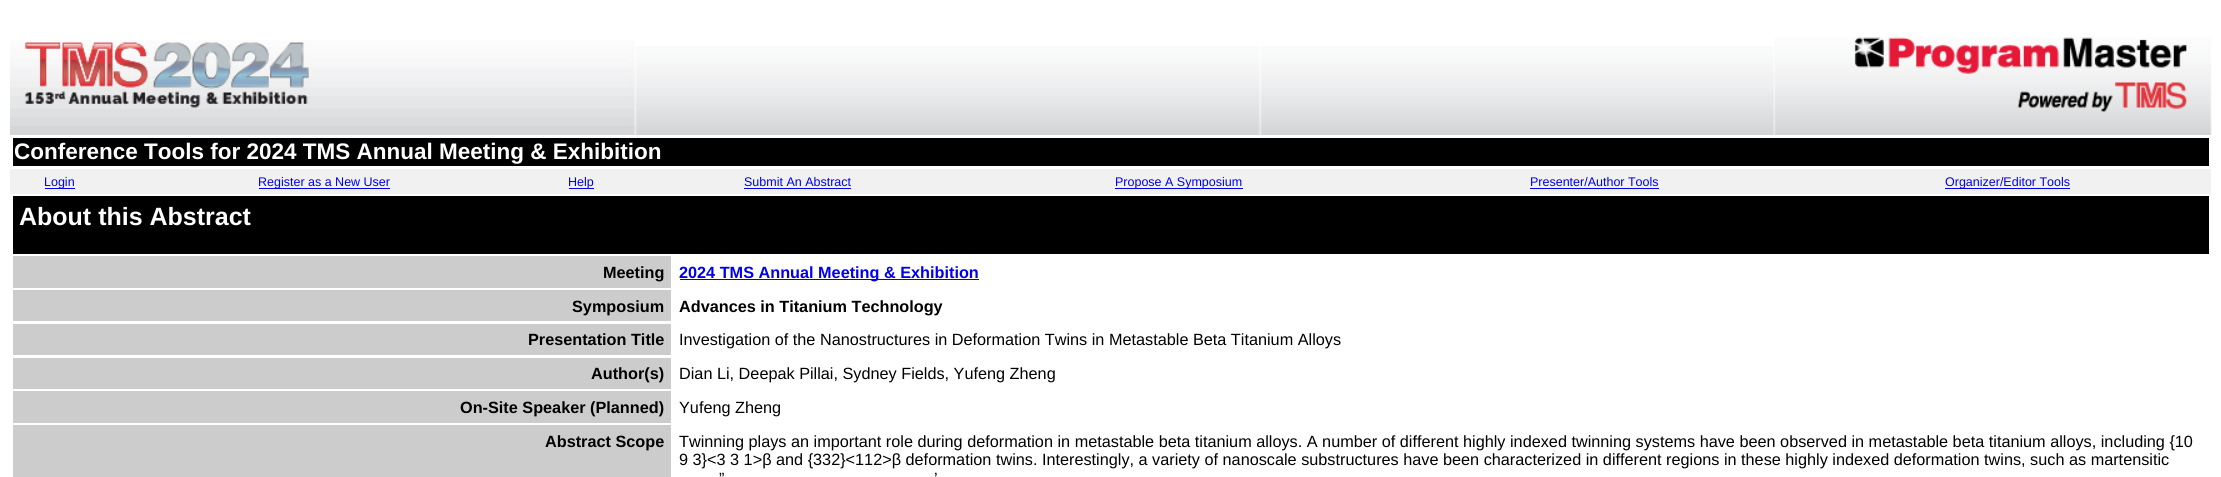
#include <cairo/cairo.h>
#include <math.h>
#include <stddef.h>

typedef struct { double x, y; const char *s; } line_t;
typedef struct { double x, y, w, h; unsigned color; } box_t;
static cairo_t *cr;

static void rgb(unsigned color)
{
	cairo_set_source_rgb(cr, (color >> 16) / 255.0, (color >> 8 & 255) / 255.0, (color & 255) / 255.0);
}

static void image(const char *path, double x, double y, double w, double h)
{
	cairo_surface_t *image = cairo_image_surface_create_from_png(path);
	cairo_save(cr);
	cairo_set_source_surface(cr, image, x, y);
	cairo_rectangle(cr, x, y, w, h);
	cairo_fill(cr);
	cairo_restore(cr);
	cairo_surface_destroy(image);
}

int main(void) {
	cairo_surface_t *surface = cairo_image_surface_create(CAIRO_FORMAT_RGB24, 2221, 477);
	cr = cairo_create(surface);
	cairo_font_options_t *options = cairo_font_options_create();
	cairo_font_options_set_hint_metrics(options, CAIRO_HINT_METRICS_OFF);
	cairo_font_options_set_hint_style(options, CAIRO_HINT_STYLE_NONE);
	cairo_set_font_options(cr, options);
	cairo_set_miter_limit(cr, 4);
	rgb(0xffffff);
	cairo_paint(cr);
	image("img/1.png", 10, 40, 625, 95);
	image("img/2.png", 635, 46, 1139, 89);
	image("img/3.png", 1774, 37, 438, 98);
	{
		static const box_t items[] = {
			{13, 138, 2196, 28, 0x000000},
			{10, 169, 2201, 25, 0xf1f1f1},
			{45, 188, 30, 1, 0x0000ee},
			{259, 188, 131, 1, 0x0000ee},
			{569, 188, 25, 1, 0x0000ee},
			{744, 188, 107, 1, 0x0000ee},
			{1115, 188, 128, 1, 0x0000ee},
			{1530, 188, 129, 1, 0x0000ee},
			{1945, 188, 125, 1, 0x0000ee},
			{13, 196, 2196, 58, 0x000000},
			{13, 256, 658, 32, 0xcccccc},
			{680, 279, 299, 1, 0x0000ee},
			{13, 290, 658, 31, 0xcccccc},
			{13, 324, 658, 31, 0xcccccc},
			{13, 358, 658, 31, 0xcccccc},
			{13, 391, 658, 32, 0xcccccc},
			{13, 425, 658, 52, 0xcccccc},
		};
		for (size_t i = 0; i < sizeof items / sizeof *items; i++) {
			rgb(items[i].color);
			cairo_rectangle(cr, items[i].x, items[i].y, items[i].w, items[i].h);
			cairo_fill(cr);
		}
	}
	cairo_select_font_face(cr, "Liberation Sans", CAIRO_FONT_SLANT_NORMAL, CAIRO_FONT_WEIGHT_BOLD);
	cairo_set_font_size(cr, 22.5);
	rgb(0xffffff);
	cairo_move_to(cr, 14, 159);
	cairo_show_text(cr, "Conference Tools for 2024 TMS Annual Meeting & Exhibition");
	cairo_select_font_face(cr, "Liberation Sans", CAIRO_FONT_SLANT_NORMAL, CAIRO_FONT_WEIGHT_NORMAL);
	cairo_set_font_size(cr, 12.5);
	rgb(0x0000ee);
	{
		static const line_t items[] = {
			{44, 186, "Login"},
			{258, 186, "Register as a New User"},
			{568, 186, "Help"},
			{744, 186, "Submit An Abstract"},
			{1115, 186, "Propose A Symposium"},
			{1530, 186, "Presenter/Author Tools"},
			{1945, 186, "Organizer/Editor Tools"},
		};
		for (size_t i = 0; i < sizeof items / sizeof *items; i++) {
			cairo_move_to(cr, items[i].x, items[i].y);
			cairo_show_text(cr, items[i].s);
		}
	}
	cairo_select_font_face(cr, "Liberation Sans", CAIRO_FONT_SLANT_NORMAL, CAIRO_FONT_WEIGHT_BOLD);
	cairo_set_font_size(cr, 25);
	rgb(0xffffff);
	cairo_move_to(cr, 19, 225);
	cairo_show_text(cr, "About this Abstract");
	cairo_set_font_size(cr, 16.25);
	rgb(0x000000);
	cairo_move_to(cr, 603, 278);
	cairo_show_text(cr, "Meeting");
	rgb(0x0000ee);
	cairo_move_to(cr, 679, 278);
	cairo_show_text(cr, "2024 TMS Annual Meeting & Exhibition");
	rgb(0x000000);
	{
		static const line_t items[] = {
			{572, 312, "Symposium"},
			{679, 312, "Advances in Titanium Technology"},
			{528, 345, "Presentation Title"},
		};
		for (size_t i = 0; i < sizeof items / sizeof *items; i++) {
			cairo_move_to(cr, items[i].x, items[i].y);
			cairo_show_text(cr, items[i].s);
		}
	}
	cairo_select_font_face(cr, "Liberation Sans", CAIRO_FONT_SLANT_NORMAL, CAIRO_FONT_WEIGHT_NORMAL);
	cairo_move_to(cr, 679, 345);
	cairo_show_text(cr, "Investigation of the Nanostructures in Deformation Twins in Metastable Beta Titanium Alloys");
	cairo_select_font_face(cr, "Liberation Sans", CAIRO_FONT_SLANT_NORMAL, CAIRO_FONT_WEIGHT_BOLD);
	cairo_move_to(cr, 591, 379);
	cairo_show_text(cr, "Author(s)");
	cairo_select_font_face(cr, "Liberation Sans", CAIRO_FONT_SLANT_NORMAL, CAIRO_FONT_WEIGHT_NORMAL);
	cairo_move_to(cr, 679, 379);
	cairo_show_text(cr, "Dian Li, Deepak Pillai, Sydney Fields, Yufeng Zheng");
	cairo_select_font_face(cr, "Liberation Sans", CAIRO_FONT_SLANT_NORMAL, CAIRO_FONT_WEIGHT_BOLD);
	cairo_move_to(cr, 460, 413);
	cairo_show_text(cr, "On-Site Speaker (Planned)");
	cairo_select_font_face(cr, "Liberation Sans", CAIRO_FONT_SLANT_NORMAL, CAIRO_FONT_WEIGHT_NORMAL);
	cairo_move_to(cr, 679, 413);
	cairo_show_text(cr, "Yufeng Zheng");
	cairo_select_font_face(cr, "Liberation Sans", CAIRO_FONT_SLANT_NORMAL, CAIRO_FONT_WEIGHT_BOLD);
	cairo_move_to(cr, 545, 447);
	cairo_show_text(cr, "Abstract Scope");
	cairo_select_font_face(cr, "Liberation Sans", CAIRO_FONT_SLANT_NORMAL, CAIRO_FONT_WEIGHT_NORMAL);
	{
		static const line_t items[] = {
			{679, 447, "Twinning plays an important role during deformation in metastable beta titanium alloys. A number of different highly indexed twinning systems have been observed in metastable beta titanium alloys, including {10"},
			{679, 465, "9 3}<3 3 1>β and {332}<112>β deformation twins. Interestingly, a variety of nanoscale substructures have been characterized in different regions in these highly indexed deformation twins, such as martensitic"},
			{719, 484, "”"},
			{934, 484, "’"},
		};
		for (size_t i = 0; i < sizeof items / sizeof *items; i++) {
			cairo_move_to(cr, items[i].x, items[i].y);
			cairo_show_text(cr, items[i].s);
		}
	}
	cairo_surface_write_to_png(surface, "page.png");
	cairo_font_options_destroy(options);
	cairo_destroy(cr);
	cairo_surface_destroy(surface);
	return 0;
}
